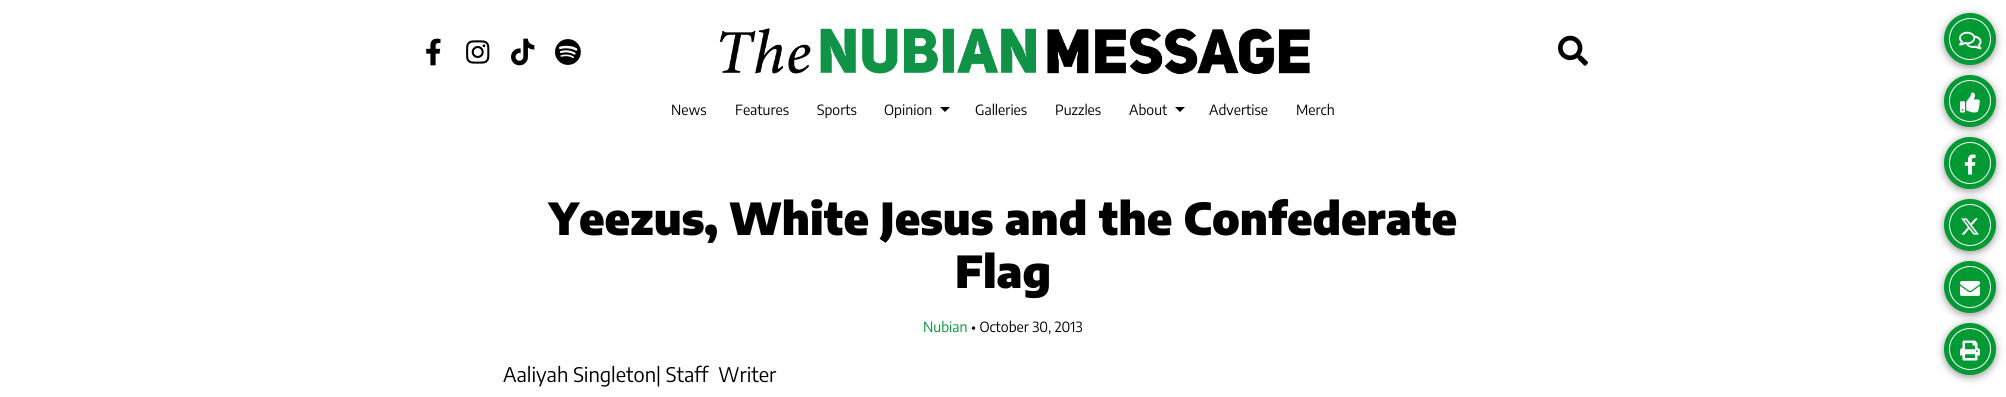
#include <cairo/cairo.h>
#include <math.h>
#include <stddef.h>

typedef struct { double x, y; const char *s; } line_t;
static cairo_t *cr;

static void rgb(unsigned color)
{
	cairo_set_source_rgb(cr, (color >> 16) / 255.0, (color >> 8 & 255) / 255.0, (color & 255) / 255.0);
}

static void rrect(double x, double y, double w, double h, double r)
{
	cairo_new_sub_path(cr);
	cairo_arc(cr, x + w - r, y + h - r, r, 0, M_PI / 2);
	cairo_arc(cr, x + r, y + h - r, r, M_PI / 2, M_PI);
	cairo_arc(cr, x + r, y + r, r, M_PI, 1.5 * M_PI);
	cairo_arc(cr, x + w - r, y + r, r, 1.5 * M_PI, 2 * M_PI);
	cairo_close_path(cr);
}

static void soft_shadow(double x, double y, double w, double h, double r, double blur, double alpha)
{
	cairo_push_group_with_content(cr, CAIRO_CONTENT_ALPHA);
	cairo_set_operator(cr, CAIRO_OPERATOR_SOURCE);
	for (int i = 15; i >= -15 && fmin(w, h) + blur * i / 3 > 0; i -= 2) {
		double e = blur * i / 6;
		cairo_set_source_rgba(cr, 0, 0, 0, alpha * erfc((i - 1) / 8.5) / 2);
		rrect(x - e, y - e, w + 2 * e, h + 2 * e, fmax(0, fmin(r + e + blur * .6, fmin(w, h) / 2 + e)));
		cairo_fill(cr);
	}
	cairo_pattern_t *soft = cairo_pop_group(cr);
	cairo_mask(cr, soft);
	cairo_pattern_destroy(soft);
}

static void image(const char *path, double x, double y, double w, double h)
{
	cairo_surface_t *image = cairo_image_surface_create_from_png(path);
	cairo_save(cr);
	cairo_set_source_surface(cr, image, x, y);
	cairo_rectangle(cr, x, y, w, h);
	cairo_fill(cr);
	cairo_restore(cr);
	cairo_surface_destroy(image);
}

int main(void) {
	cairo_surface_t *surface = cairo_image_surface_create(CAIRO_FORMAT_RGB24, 2006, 397);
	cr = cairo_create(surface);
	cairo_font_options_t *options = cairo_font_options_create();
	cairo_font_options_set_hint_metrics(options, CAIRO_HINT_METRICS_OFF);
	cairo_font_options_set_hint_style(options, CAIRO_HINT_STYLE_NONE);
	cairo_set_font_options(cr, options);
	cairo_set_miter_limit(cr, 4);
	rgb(0xffffff);
	cairo_paint(cr);
	image("img/1.png", 426, 38, 15, 28);
	image("img/2.png", 466, 40, 24, 24);
	image("img/3.png", 511, 38, 24, 28);
	image("img/4.png", 555, 39, 26, 26);
	image("img/5.png", 719, 28, 591, 47);
	image("img/6.png", 1558, 35, 30, 31);
	rgb(0x000000);
	cairo_new_path(cr);
	cairo_move_to(cr, 940, 107);
	cairo_line_to(cr, 950, 107);
	cairo_line_to(cr, 945, 112);
	cairo_close_path(cr);
	cairo_fill(cr);
	cairo_new_path(cr);
	cairo_move_to(cr, 1175, 107);
	cairo_line_to(cr, 1185, 107);
	cairo_line_to(cr, 1180, 112);
	cairo_close_path(cr);
	cairo_fill(cr);
	rgb(0x000000);
	soft_shadow(1944, 15, 52, 52, 26, 4, 0.4);
	rgb(0x009933);
	cairo_arc(cr, 1970, 39, 26, 0, 2 * M_PI);
	cairo_fill(cr);
	cairo_arc(cr, 1970, 39, 20.5, 0, 2 * M_PI);
	rgb(0xffffff);
	cairo_set_line_width(cr, 1);
	cairo_stroke(cr);
	image("img/7.png", 1959, 31, 23, 19);
	rgb(0x000000);
	soft_shadow(1944, 77, 52, 52, 26, 4, 0.4);
	rgb(0x009933);
	cairo_arc(cr, 1970, 101, 26, 0, 2 * M_PI);
	cairo_fill(cr);
	cairo_arc(cr, 1970, 101, 20.5, 0, 2 * M_PI);
	rgb(0xffffff);
	cairo_stroke(cr);
	image("img/8.png", 1960, 92, 20, 21);
	rgb(0x000000);
	soft_shadow(1944, 139, 52, 52, 26, 4, 0.4);
	rgb(0x009933);
	cairo_arc(cr, 1970, 163, 26, 0, 2 * M_PI);
	cairo_fill(cr);
	cairo_arc(cr, 1970, 163, 20.5, 0, 2 * M_PI);
	rgb(0xffffff);
	cairo_stroke(cr);
	image("img/9.png", 1964, 154, 12, 21);
	rgb(0x000000);
	soft_shadow(1944, 201, 52, 52, 26, 4, 0.4);
	rgb(0x009933);
	cairo_arc(cr, 1970, 225, 26, 0, 2 * M_PI);
	cairo_fill(cr);
	cairo_arc(cr, 1970, 225, 20.5, 0, 2 * M_PI);
	rgb(0xffffff);
	cairo_stroke(cr);
	image("img/10.png", 1961, 218, 18, 17);
	rgb(0x000000);
	soft_shadow(1944, 263, 52, 52, 26, 4, 0.4);
	rgb(0x009933);
	cairo_arc(cr, 1970, 287, 26, 0, 2 * M_PI);
	cairo_fill(cr);
	cairo_arc(cr, 1970, 287, 20.5, 0, 2 * M_PI);
	rgb(0xffffff);
	cairo_stroke(cr);
	image("img/11.png", 1960, 281, 20, 15);
	rgb(0x000000);
	soft_shadow(1944, 325, 52, 52, 26, 4, 0.4);
	rgb(0x009933);
	cairo_arc(cr, 1970, 349, 26, 0, 2 * M_PI);
	cairo_fill(cr);
	cairo_arc(cr, 1970, 349, 20.5, 0, 2 * M_PI);
	rgb(0xffffff);
	cairo_stroke(cr);
	image("img/12.png", 1960, 340, 20, 21);
	cairo_select_font_face(cr, "Encode Sans Condensed", CAIRO_FONT_SLANT_NORMAL, CAIRO_FONT_WEIGHT_NORMAL);
	cairo_set_font_size(cr, 14);
	rgb(0x000000);
	{
		static const line_t items[] = {
			{671, 115, "News"},
			{735, 115, "Features"},
			{817, 115, "Sports"},
			{884, 115, "Opinion"},
			{975, 115, "Galleries"},
			{1055, 115, "Puzzles"},
			{1129, 115, "About"},
			{1209, 115, "Advertise"},
			{1296, 115, "Merch"},
		};
		for (size_t i = 0; i < sizeof items / sizeof *items; i++) {
			cairo_move_to(cr, items[i].x, items[i].y);
			cairo_show_text(cr, items[i].s);
		}
	}
	cairo_select_font_face(cr, "Encode Sans Condensed Black", CAIRO_FONT_SLANT_NORMAL, CAIRO_FONT_WEIGHT_NORMAL);
	cairo_set_font_size(cr, 44);
	cairo_move_to(cr, 549, 235);
	cairo_show_text(cr, "Yeezus, White Jesus and the Confederate");
	cairo_move_to(cr, 955, 288);
	cairo_show_text(cr, "Flag");
	cairo_select_font_face(cr, "Encode Sans Condensed", CAIRO_FONT_SLANT_NORMAL, CAIRO_FONT_WEIGHT_NORMAL);
	cairo_set_font_size(cr, 14);
	rgb(0x009933);
	cairo_move_to(cr, 923, 332);
	cairo_show_text(cr, "Nubian");
	rgb(0x000000);
	cairo_move_to(cr, 971, 332);
	cairo_show_text(cr, "• October 30, 2013");
	cairo_set_font_size(cr, 20);
	cairo_move_to(cr, 503, 382);
	cairo_show_text(cr, "Aaliyah Singleton| Staff  Writer");
	cairo_surface_write_to_png(surface, "page.png");
	cairo_font_options_destroy(options);
	cairo_destroy(cr);
	cairo_surface_destroy(surface);
	return 0;
}
